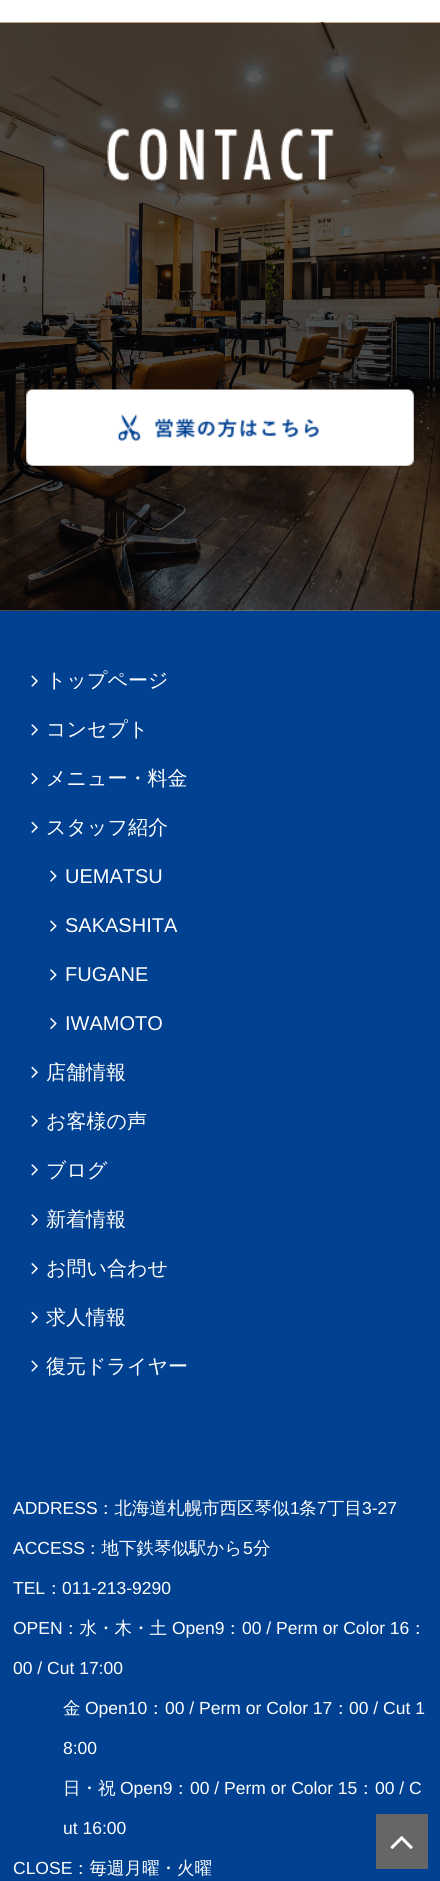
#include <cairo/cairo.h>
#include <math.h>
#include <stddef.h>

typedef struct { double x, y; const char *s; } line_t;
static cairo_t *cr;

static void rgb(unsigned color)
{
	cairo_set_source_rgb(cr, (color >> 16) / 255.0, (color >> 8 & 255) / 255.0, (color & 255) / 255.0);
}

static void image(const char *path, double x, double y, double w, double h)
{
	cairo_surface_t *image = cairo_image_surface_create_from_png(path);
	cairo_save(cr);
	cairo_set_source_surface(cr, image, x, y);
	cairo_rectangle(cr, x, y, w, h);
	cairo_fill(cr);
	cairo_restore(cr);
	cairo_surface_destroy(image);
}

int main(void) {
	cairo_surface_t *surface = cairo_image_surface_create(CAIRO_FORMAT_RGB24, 440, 1881);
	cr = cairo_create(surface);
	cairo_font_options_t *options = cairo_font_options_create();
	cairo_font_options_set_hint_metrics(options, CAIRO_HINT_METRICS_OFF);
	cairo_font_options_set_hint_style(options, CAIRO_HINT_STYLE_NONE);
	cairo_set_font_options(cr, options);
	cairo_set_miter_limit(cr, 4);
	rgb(0xffffff);
	cairo_paint(cr);
	image("img/1.png", 0, 22, 440, 589);
	image("img/2.png", 107, 128, 227, 53);
	image("img/3.png", 26, 389, 388, 77);
	rgb(0x004191);
	cairo_rectangle(cr, 0, 611, 440, 1270);
	cairo_fill(cr);
	image("img/4.png", 31, 675, 7, 12);
	image("img/5.png", 31, 724, 7, 12);
	image("img/6.png", 31, 773, 7, 12);
	image("img/7.png", 31, 821, 7, 12);
	image("img/8.png", 50, 870, 7, 12);
	image("img/8.png", 50, 920, 7, 12);
	image("img/9.png", 50, 969, 7, 12);
	image("img/10.png", 50, 1018, 7, 12);
	image("img/7.png", 31, 1066, 7, 12);
	image("img/4.png", 31, 1115, 7, 12);
	image("img/5.png", 31, 1164, 7, 12);
	image("img/5.png", 31, 1214, 7, 12);
	image("img/6.png", 31, 1263, 7, 12);
	image("img/7.png", 31, 1311, 7, 12);
	image("img/4.png", 31, 1360, 7, 12);
	rgb(0x666666);
	cairo_rectangle(cr, 376, 1814, 52, 55);
	cairo_fill(cr);
	image("img/11.png", 390, 1836, 23, 13);
	cairo_select_font_face(cr, "WenQuanYi Zen Hei Medium", CAIRO_FONT_SLANT_NORMAL, CAIRO_FONT_WEIGHT_NORMAL);
	cairo_set_font_size(cr, 20);
	rgb(0xffffff);
	{
		static const line_t items[] = {
			{46, 687, "トップページ"},
			{46, 736, "コンセプト"},
			{46, 785, "メニュー・料金"},
			{46, 834, "スタッフ紹介"},
		};
		for (size_t i = 0; i < sizeof items / sizeof *items; i++) {
			cairo_move_to(cr, items[i].x, items[i].y);
			cairo_show_text(cr, items[i].s);
		}
	}
	cairo_select_font_face(cr, "Liberation Sans", CAIRO_FONT_SLANT_NORMAL, CAIRO_FONT_WEIGHT_NORMAL);
	{
		static const line_t items[] = {
			{65, 883, "UEMATSU"},
			{65, 932, "SAKASHITA"},
			{65, 981, "FUGANE"},
			{65, 1030, "IWAMOTO"},
		};
		for (size_t i = 0; i < sizeof items / sizeof *items; i++) {
			cairo_move_to(cr, items[i].x, items[i].y);
			cairo_show_text(cr, items[i].s);
		}
	}
	cairo_select_font_face(cr, "WenQuanYi Zen Hei Medium", CAIRO_FONT_SLANT_NORMAL, CAIRO_FONT_WEIGHT_NORMAL);
	{
		static const line_t items[] = {
			{46, 1079, "店舗情報"},
			{46, 1128, "お客様の声"},
			{46, 1177, "ブログ"},
			{46, 1226, "新着情報"},
			{46, 1275, "お問い合わせ"},
			{46, 1324, "求人情報"},
			{46, 1373, "復元ドライヤー"},
		};
		for (size_t i = 0; i < sizeof items / sizeof *items; i++) {
			cairo_move_to(cr, items[i].x, items[i].y);
			cairo_show_text(cr, items[i].s);
		}
	}
	cairo_select_font_face(cr, "Liberation Sans", CAIRO_FONT_SLANT_NORMAL, CAIRO_FONT_WEIGHT_NORMAL);
	cairo_set_font_size(cr, 17.5);
	cairo_move_to(cr, 13, 1514);
	cairo_show_text(cr, "ADDRESS");
	cairo_select_font_face(cr, "WenQuanYi Zen Hei Medium", CAIRO_FONT_SLANT_NORMAL, CAIRO_FONT_WEIGHT_NORMAL);
	cairo_move_to(cr, 97, 1514);
	cairo_show_text(cr, "：北海道札幌市西区琴似");
	cairo_select_font_face(cr, "Liberation Sans", CAIRO_FONT_SLANT_NORMAL, CAIRO_FONT_WEIGHT_NORMAL);
	cairo_move_to(cr, 290, 1514);
	cairo_show_text(cr, "1");
	cairo_select_font_face(cr, "WenQuanYi Zen Hei Medium", CAIRO_FONT_SLANT_NORMAL, CAIRO_FONT_WEIGHT_NORMAL);
	cairo_move_to(cr, 299, 1514);
	cairo_show_text(cr, "条");
	cairo_select_font_face(cr, "Liberation Sans", CAIRO_FONT_SLANT_NORMAL, CAIRO_FONT_WEIGHT_NORMAL);
	cairo_move_to(cr, 317, 1514);
	cairo_show_text(cr, "7");
	cairo_select_font_face(cr, "WenQuanYi Zen Hei Medium", CAIRO_FONT_SLANT_NORMAL, CAIRO_FONT_WEIGHT_NORMAL);
	cairo_move_to(cr, 327, 1514);
	cairo_show_text(cr, "丁目");
	cairo_select_font_face(cr, "Liberation Sans", CAIRO_FONT_SLANT_NORMAL, CAIRO_FONT_WEIGHT_NORMAL);
	cairo_move_to(cr, 362, 1514);
	cairo_show_text(cr, "3-27");
	cairo_move_to(cr, 13, 1554);
	cairo_show_text(cr, "ACCESS");
	cairo_select_font_face(cr, "WenQuanYi Zen Hei Medium", CAIRO_FONT_SLANT_NORMAL, CAIRO_FONT_WEIGHT_NORMAL);
	cairo_move_to(cr, 84, 1554);
	cairo_show_text(cr, "：地下鉄琴似駅から");
	cairo_select_font_face(cr, "Liberation Sans", CAIRO_FONT_SLANT_NORMAL, CAIRO_FONT_WEIGHT_NORMAL);
	cairo_move_to(cr, 243, 1554);
	cairo_show_text(cr, "5");
	cairo_select_font_face(cr, "WenQuanYi Zen Hei Medium", CAIRO_FONT_SLANT_NORMAL, CAIRO_FONT_WEIGHT_NORMAL);
	cairo_move_to(cr, 253, 1554);
	cairo_show_text(cr, "分");
	cairo_select_font_face(cr, "Liberation Sans", CAIRO_FONT_SLANT_NORMAL, CAIRO_FONT_WEIGHT_NORMAL);
	cairo_move_to(cr, 13, 1594);
	cairo_show_text(cr, "TEL");
	cairo_select_font_face(cr, "WenQuanYi Zen Hei Medium", CAIRO_FONT_SLANT_NORMAL, CAIRO_FONT_WEIGHT_NORMAL);
	cairo_move_to(cr, 45, 1594);
	cairo_show_text(cr, "：");
	cairo_select_font_face(cr, "Liberation Sans", CAIRO_FONT_SLANT_NORMAL, CAIRO_FONT_WEIGHT_NORMAL);
	cairo_move_to(cr, 62, 1594);
	cairo_show_text(cr, "011-213-9290");
	cairo_move_to(cr, 13, 1634);
	cairo_show_text(cr, "OPEN");
	cairo_select_font_face(cr, "WenQuanYi Zen Hei Medium", CAIRO_FONT_SLANT_NORMAL, CAIRO_FONT_WEIGHT_NORMAL);
	cairo_move_to(cr, 62, 1634);
	cairo_show_text(cr, "：水・木・土");
	cairo_select_font_face(cr, "Liberation Sans", CAIRO_FONT_SLANT_NORMAL, CAIRO_FONT_WEIGHT_NORMAL);
	cairo_move_to(cr, 172, 1634);
	cairo_show_text(cr, "Open9");
	cairo_select_font_face(cr, "WenQuanYi Zen Hei Medium", CAIRO_FONT_SLANT_NORMAL, CAIRO_FONT_WEIGHT_NORMAL);
	cairo_move_to(cr, 224, 1634);
	cairo_show_text(cr, "：");
	cairo_select_font_face(cr, "Liberation Sans", CAIRO_FONT_SLANT_NORMAL, CAIRO_FONT_WEIGHT_NORMAL);
	cairo_move_to(cr, 242, 1634);
	cairo_show_text(cr, "00 / Perm or Color 16");
	cairo_select_font_face(cr, "WenQuanYi Zen Hei Medium", CAIRO_FONT_SLANT_NORMAL, CAIRO_FONT_WEIGHT_NORMAL);
	cairo_move_to(cr, 409, 1634);
	cairo_show_text(cr, "：");
	cairo_select_font_face(cr, "Liberation Sans", CAIRO_FONT_SLANT_NORMAL, CAIRO_FONT_WEIGHT_NORMAL);
	cairo_move_to(cr, 13, 1674);
	cairo_show_text(cr, "00 / Cut 17:00");
	cairo_select_font_face(cr, "WenQuanYi Zen Hei Medium", CAIRO_FONT_SLANT_NORMAL, CAIRO_FONT_WEIGHT_NORMAL);
	cairo_move_to(cr, 63, 1714);
	cairo_show_text(cr, "金");
	cairo_select_font_face(cr, "Liberation Sans", CAIRO_FONT_SLANT_NORMAL, CAIRO_FONT_WEIGHT_NORMAL);
	cairo_move_to(cr, 85, 1714);
	cairo_show_text(cr, "Open10");
	cairo_select_font_face(cr, "WenQuanYi Zen Hei Medium", CAIRO_FONT_SLANT_NORMAL, CAIRO_FONT_WEIGHT_NORMAL);
	cairo_move_to(cr, 147, 1714);
	cairo_show_text(cr, "：");
	cairo_select_font_face(cr, "Liberation Sans", CAIRO_FONT_SLANT_NORMAL, CAIRO_FONT_WEIGHT_NORMAL);
	cairo_move_to(cr, 165, 1714);
	cairo_show_text(cr, "00 / Perm or Color 17");
	cairo_select_font_face(cr, "WenQuanYi Zen Hei Medium", CAIRO_FONT_SLANT_NORMAL, CAIRO_FONT_WEIGHT_NORMAL);
	cairo_move_to(cr, 332, 1714);
	cairo_show_text(cr, "：");
	cairo_select_font_face(cr, "Liberation Sans", CAIRO_FONT_SLANT_NORMAL, CAIRO_FONT_WEIGHT_NORMAL);
	cairo_move_to(cr, 349, 1714);
	cairo_show_text(cr, "00 / Cut 1");
	cairo_move_to(cr, 63, 1754);
	cairo_show_text(cr, "8:00");
	cairo_select_font_face(cr, "WenQuanYi Zen Hei Medium", CAIRO_FONT_SLANT_NORMAL, CAIRO_FONT_WEIGHT_NORMAL);
	cairo_move_to(cr, 63, 1794);
	cairo_show_text(cr, "日・祝");
	cairo_select_font_face(cr, "Liberation Sans", CAIRO_FONT_SLANT_NORMAL, CAIRO_FONT_WEIGHT_NORMAL);
	cairo_move_to(cr, 120, 1794);
	cairo_show_text(cr, "Open9");
	cairo_select_font_face(cr, "WenQuanYi Zen Hei Medium", CAIRO_FONT_SLANT_NORMAL, CAIRO_FONT_WEIGHT_NORMAL);
	cairo_move_to(cr, 172, 1794);
	cairo_show_text(cr, "：");
	cairo_select_font_face(cr, "Liberation Sans", CAIRO_FONT_SLANT_NORMAL, CAIRO_FONT_WEIGHT_NORMAL);
	cairo_move_to(cr, 190, 1794);
	cairo_show_text(cr, "00 / Perm or Color 15");
	cairo_select_font_face(cr, "WenQuanYi Zen Hei Medium", CAIRO_FONT_SLANT_NORMAL, CAIRO_FONT_WEIGHT_NORMAL);
	cairo_move_to(cr, 357, 1794);
	cairo_show_text(cr, "：");
	cairo_select_font_face(cr, "Liberation Sans", CAIRO_FONT_SLANT_NORMAL, CAIRO_FONT_WEIGHT_NORMAL);
	{
		static const line_t items[] = {
			{375, 1794, "00 / C"},
			{63, 1834, "ut 16:00"},
			{13, 1874, "CLOSE"},
		};
		for (size_t i = 0; i < sizeof items / sizeof *items; i++) {
			cairo_move_to(cr, items[i].x, items[i].y);
			cairo_show_text(cr, items[i].s);
		}
	}
	cairo_select_font_face(cr, "WenQuanYi Zen Hei Medium", CAIRO_FONT_SLANT_NORMAL, CAIRO_FONT_WEIGHT_NORMAL);
	cairo_move_to(cr, 72, 1874);
	cairo_show_text(cr, "：毎週月曜・火曜");
	cairo_surface_write_to_png(surface, "page.png");
	cairo_font_options_destroy(options);
	cairo_destroy(cr);
	cairo_surface_destroy(surface);
	return 0;
}
